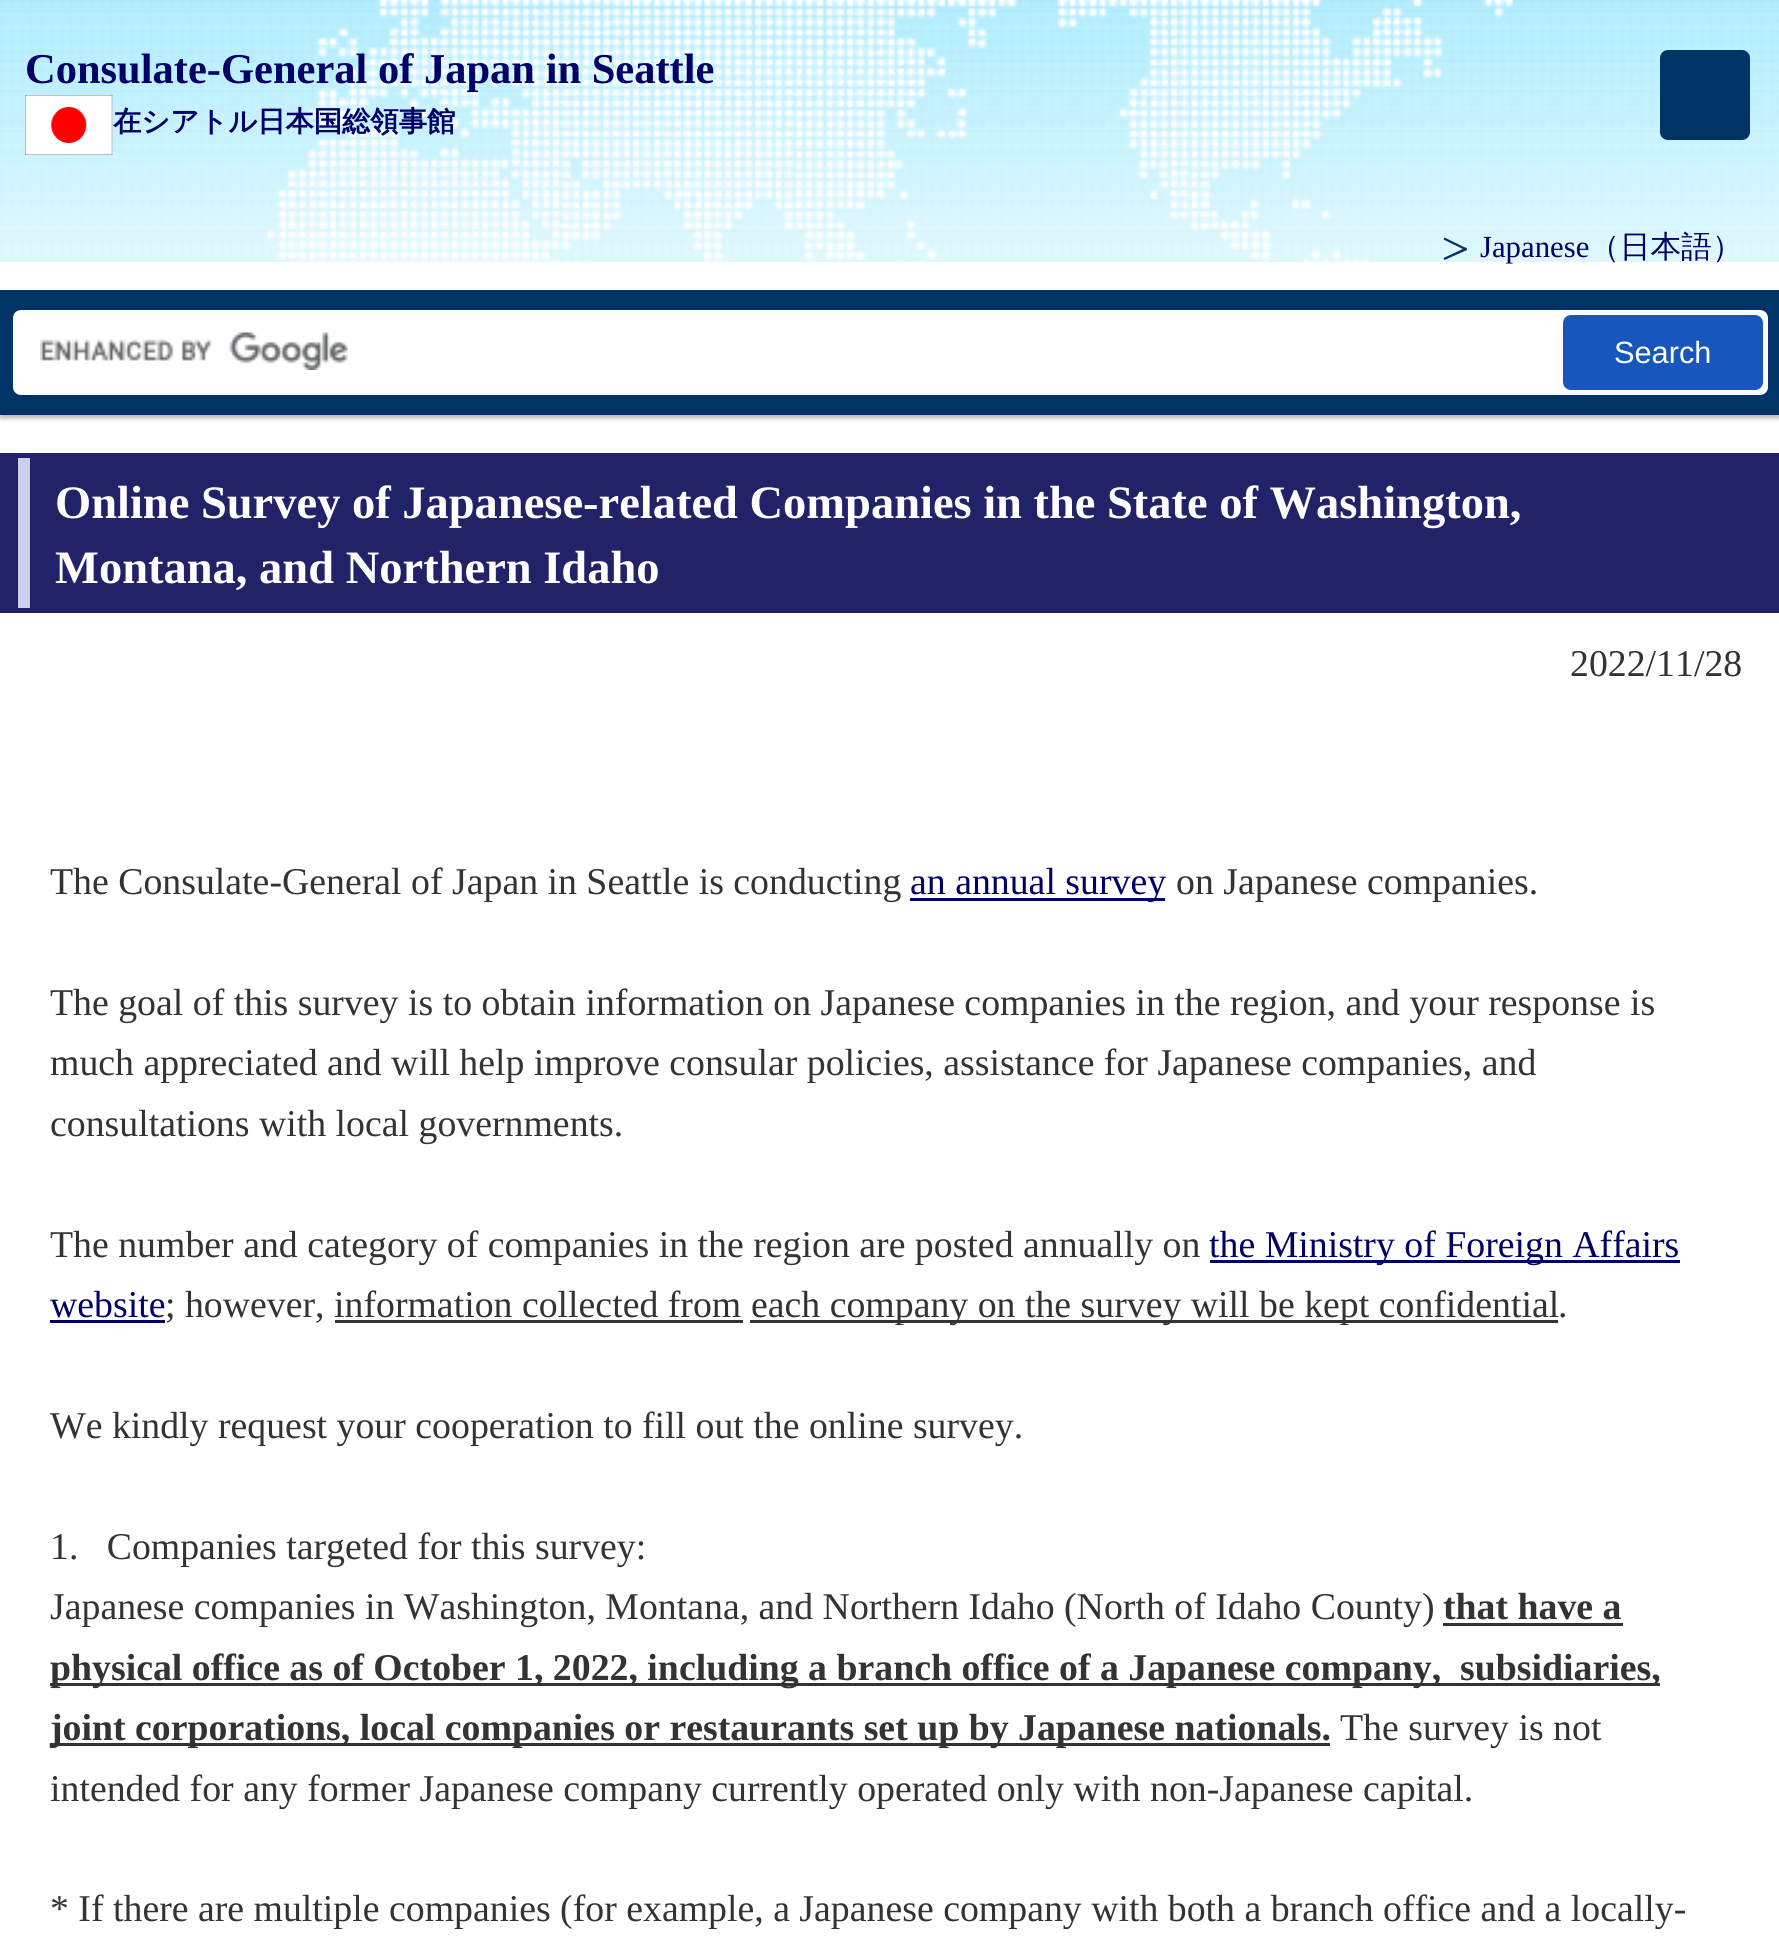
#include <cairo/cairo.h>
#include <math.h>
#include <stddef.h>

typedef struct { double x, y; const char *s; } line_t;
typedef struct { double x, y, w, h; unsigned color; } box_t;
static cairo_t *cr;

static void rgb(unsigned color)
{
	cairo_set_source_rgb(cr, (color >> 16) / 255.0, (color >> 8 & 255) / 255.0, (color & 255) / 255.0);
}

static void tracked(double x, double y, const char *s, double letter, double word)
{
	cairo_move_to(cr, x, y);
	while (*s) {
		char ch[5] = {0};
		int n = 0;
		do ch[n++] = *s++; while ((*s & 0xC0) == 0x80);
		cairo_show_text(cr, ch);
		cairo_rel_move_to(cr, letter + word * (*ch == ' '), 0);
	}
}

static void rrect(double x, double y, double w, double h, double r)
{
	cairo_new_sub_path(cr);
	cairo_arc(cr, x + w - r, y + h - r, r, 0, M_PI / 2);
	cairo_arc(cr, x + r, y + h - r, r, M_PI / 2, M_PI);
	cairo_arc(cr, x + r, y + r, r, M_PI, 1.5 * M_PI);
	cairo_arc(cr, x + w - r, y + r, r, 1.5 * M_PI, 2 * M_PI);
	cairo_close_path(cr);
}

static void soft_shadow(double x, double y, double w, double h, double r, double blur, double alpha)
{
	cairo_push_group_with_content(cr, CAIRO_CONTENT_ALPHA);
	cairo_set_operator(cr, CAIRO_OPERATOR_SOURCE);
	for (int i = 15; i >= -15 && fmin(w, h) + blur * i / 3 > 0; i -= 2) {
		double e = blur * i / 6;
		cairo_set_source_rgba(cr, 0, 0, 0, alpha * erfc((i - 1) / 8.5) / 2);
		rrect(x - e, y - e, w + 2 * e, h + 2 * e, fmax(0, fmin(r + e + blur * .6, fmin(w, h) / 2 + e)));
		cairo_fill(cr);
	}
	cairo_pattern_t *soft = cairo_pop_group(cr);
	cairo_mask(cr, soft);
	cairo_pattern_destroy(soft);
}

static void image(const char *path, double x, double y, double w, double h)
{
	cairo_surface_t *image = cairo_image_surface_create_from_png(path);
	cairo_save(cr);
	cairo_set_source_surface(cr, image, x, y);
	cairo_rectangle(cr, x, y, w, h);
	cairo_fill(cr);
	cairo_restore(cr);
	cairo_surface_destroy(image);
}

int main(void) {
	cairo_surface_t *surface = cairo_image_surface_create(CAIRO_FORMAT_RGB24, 1779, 1936);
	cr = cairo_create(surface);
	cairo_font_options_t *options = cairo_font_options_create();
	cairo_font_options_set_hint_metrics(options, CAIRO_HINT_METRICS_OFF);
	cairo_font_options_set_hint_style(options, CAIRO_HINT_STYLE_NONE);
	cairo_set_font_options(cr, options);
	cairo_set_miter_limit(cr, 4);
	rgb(0xffffff);
	cairo_paint(cr);
	image("img/1.png", 0, 0, 1779, 262);
	cairo_save(cr);
	cairo_rectangle(cr, 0, 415, 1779, 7);
	cairo_clip(cr);
	rgb(0x000000);
	soft_shadow(0, 3, 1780, 415, 0, 2.5, 0.3);
	cairo_restore(cr);
	image("img/2.png", 267, 0, 1246, 262);
	image("img/3.png", 25, 95, 88, 60);
	rgb(0x003366);
	rrect(1660, 50, 90, 90, 8);
	cairo_fill(cr);
	rgb(0x043465);
	cairo_new_path(cr);
	cairo_move_to(cr, 1466, 250.5);
	cairo_line_to(cr, 1443.5, 239.5);
	cairo_line_to(cr, 1444.5, 237.5);
	cairo_line_to(cr, 1467, 248.5);
	cairo_close_path(cr);
	cairo_fill(cr);
	cairo_new_path(cr);
	cairo_move_to(cr, 1467, 250);
	cairo_line_to(cr, 1444.5, 260);
	cairo_line_to(cr, 1443.5, 258);
	cairo_line_to(cr, 1466, 247.5);
	cairo_close_path(cr);
	cairo_fill(cr);
	rgb(0x003366);
	cairo_rectangle(cr, 0, 290, 1779, 125);
	cairo_fill(cr);
	rgb(0xffffff);
	rrect(13, 310, 1755, 85, 8);
	cairo_fill(cr);
	image("img/4.png", 40, 332, 308, 38);
	rgb(0x1756bd);
	rrect(1563, 315, 200, 75, 8);
	cairo_fill(cr);
	{
		static const box_t items[] = {
			{0, 453, 1779, 160, 0x222268},
			{18, 458, 12, 150, 0xceceef},
			{910, 898, 255, 3, 0x000066},
			{1210, 1260, 470, 3, 0x000066},
			{50, 1320, 115, 3, 0x000066},
			{750, 1320, 808, 3, 0x333333},
			{335, 1320, 408, 3, 0x333333},
			{1443, 1623, 180, 3, 0x333333},
			{50, 1683, 1610, 3, 0x333333},
			{50, 1743, 1280, 3, 0x333333},
		};
		for (size_t i = 0; i < sizeof items / sizeof *items; i++) {
			rgb(items[i].color);
			cairo_rectangle(cr, items[i].x, items[i].y, items[i].w, items[i].h);
			cairo_fill(cr);
		}
	}
	cairo_select_font_face(cr, "Liberation Serif", CAIRO_FONT_SLANT_NORMAL, CAIRO_FONT_WEIGHT_BOLD);
	cairo_set_font_size(cr, 42.5);
	rgb(0x000066);
	cairo_move_to(cr, 25, 83);
	cairo_show_text(cr, "Consulate-General of Japan in Seattle");
	cairo_select_font_face(cr, "WenQuanYi Zen Hei", CAIRO_FONT_SLANT_NORMAL, CAIRO_FONT_WEIGHT_BOLD);
	cairo_set_font_size(cr, 28.3);
	cairo_move_to(cr, 113, 131);
	cairo_show_text(cr, "在シアトル日本国総領事館");
	cairo_select_font_face(cr, "Liberation Serif", CAIRO_FONT_SLANT_NORMAL, CAIRO_FONT_WEIGHT_NORMAL);
	cairo_set_font_size(cr, 30.75);
	cairo_move_to(cr, 1480, 257);
	cairo_show_text(cr, "Japanese");
	cairo_select_font_face(cr, "WenQuanYi Zen Hei Medium", CAIRO_FONT_SLANT_NORMAL, CAIRO_FONT_WEIGHT_NORMAL);
	cairo_move_to(cr, 1589, 257);
	cairo_show_text(cr, "（日本語）");
	cairo_select_font_face(cr, "Liberation Sans", CAIRO_FONT_SLANT_NORMAL, CAIRO_FONT_WEIGHT_NORMAL);
	rgb(0xffffff);
	cairo_move_to(cr, 1614, 363);
	cairo_show_text(cr, "Search");
	cairo_select_font_face(cr, "Liberation Serif", CAIRO_FONT_SLANT_NORMAL, CAIRO_FONT_WEIGHT_BOLD);
	cairo_set_font_size(cr, 46.5);
	tracked(55, 518, "Online Survey of Japanese-related Companies in the State of Washington,", 0, -0.1);
	cairo_move_to(cr, 55, 583);
	cairo_show_text(cr, "Montana, and Northern Idaho");
	cairo_select_font_face(cr, "Liberation Serif", CAIRO_FONT_SLANT_NORMAL, CAIRO_FONT_WEIGHT_NORMAL);
	cairo_set_font_size(cr, 37.8);
	rgb(0x333333);
	cairo_move_to(cr, 1570, 676);
	cairo_show_text(cr, "2022/11/28");
	cairo_move_to(cr, 50, 894);
	cairo_show_text(cr, "The Consulate-General of Japan in Seattle is conducting");
	rgb(0x000066);
	cairo_move_to(cr, 910, 894);
	cairo_show_text(cr, "an annual survey");
	rgb(0x333333);
	{
		static const line_t items[] = {
			{1176, 894, "on Japanese companies."},
			{50, 1015, "The goal of this survey is to obtain information on Japanese companies in the region, and your response is"},
			{50, 1075, "much appreciated and will help improve consular policies, assistance for Japanese companies, and"},
			{50, 1136, "consultations with local governments."},
			{50, 1257, "The number and category of companies in the region are posted annually on"},
		};
		for (size_t i = 0; i < sizeof items / sizeof *items; i++) {
			cairo_move_to(cr, items[i].x, items[i].y);
			cairo_show_text(cr, items[i].s);
		}
	}
	rgb(0x000066);
	cairo_move_to(cr, 1209, 1257);
	cairo_show_text(cr, "the Ministry of Foreign Affairs");
	cairo_move_to(cr, 50, 1317);
	cairo_show_text(cr, "website");
	rgb(0x333333);
	{
		static const line_t items[] = {
			{165, 1317, "; however, information collected from"},
			{751, 1317, "each company on the survey will be kept confidential"},
			{1558, 1317, "."},
			{50, 1438, "We kindly request your cooperation to fill out the online survey."},
			{50, 1559, "1.   Companies targeted for this survey:"},
			{50, 1619, "Japanese companies in Washington, Montana, and Northern Idaho (North of Idaho County)"},
		};
		for (size_t i = 0; i < sizeof items / sizeof *items; i++) {
			cairo_move_to(cr, items[i].x, items[i].y);
			cairo_show_text(cr, items[i].s);
		}
	}
	cairo_select_font_face(cr, "Liberation Serif", CAIRO_FONT_SLANT_NORMAL, CAIRO_FONT_WEIGHT_BOLD);
	{
		static const line_t items[] = {
			{1443, 1619, "that have a"},
			{50, 1680, "physical office as of October 1, 2022, including a branch office of a Japanese company,  subsidiaries,"},
			{50, 1740, "joint corporations, local companies or restaurants set up by Japanese nationals."},
		};
		for (size_t i = 0; i < sizeof items / sizeof *items; i++) {
			cairo_move_to(cr, items[i].x, items[i].y);
			cairo_show_text(cr, items[i].s);
		}
	}
	cairo_select_font_face(cr, "Liberation Serif", CAIRO_FONT_SLANT_NORMAL, CAIRO_FONT_WEIGHT_NORMAL);
	{
		static const line_t items[] = {
			{1340, 1740, "The survey is not"},
			{50, 1801, "intended for any former Japanese company currently operated only with non-Japanese capital."},
			{50, 1921, "* If there are multiple companies (for example, a Japanese company with both a branch office and a locally-"},
		};
		for (size_t i = 0; i < sizeof items / sizeof *items; i++) {
			cairo_move_to(cr, items[i].x, items[i].y);
			cairo_show_text(cr, items[i].s);
		}
	}
	cairo_surface_write_to_png(surface, "page.png");
	cairo_font_options_destroy(options);
	cairo_destroy(cr);
	cairo_surface_destroy(surface);
	return 0;
}
